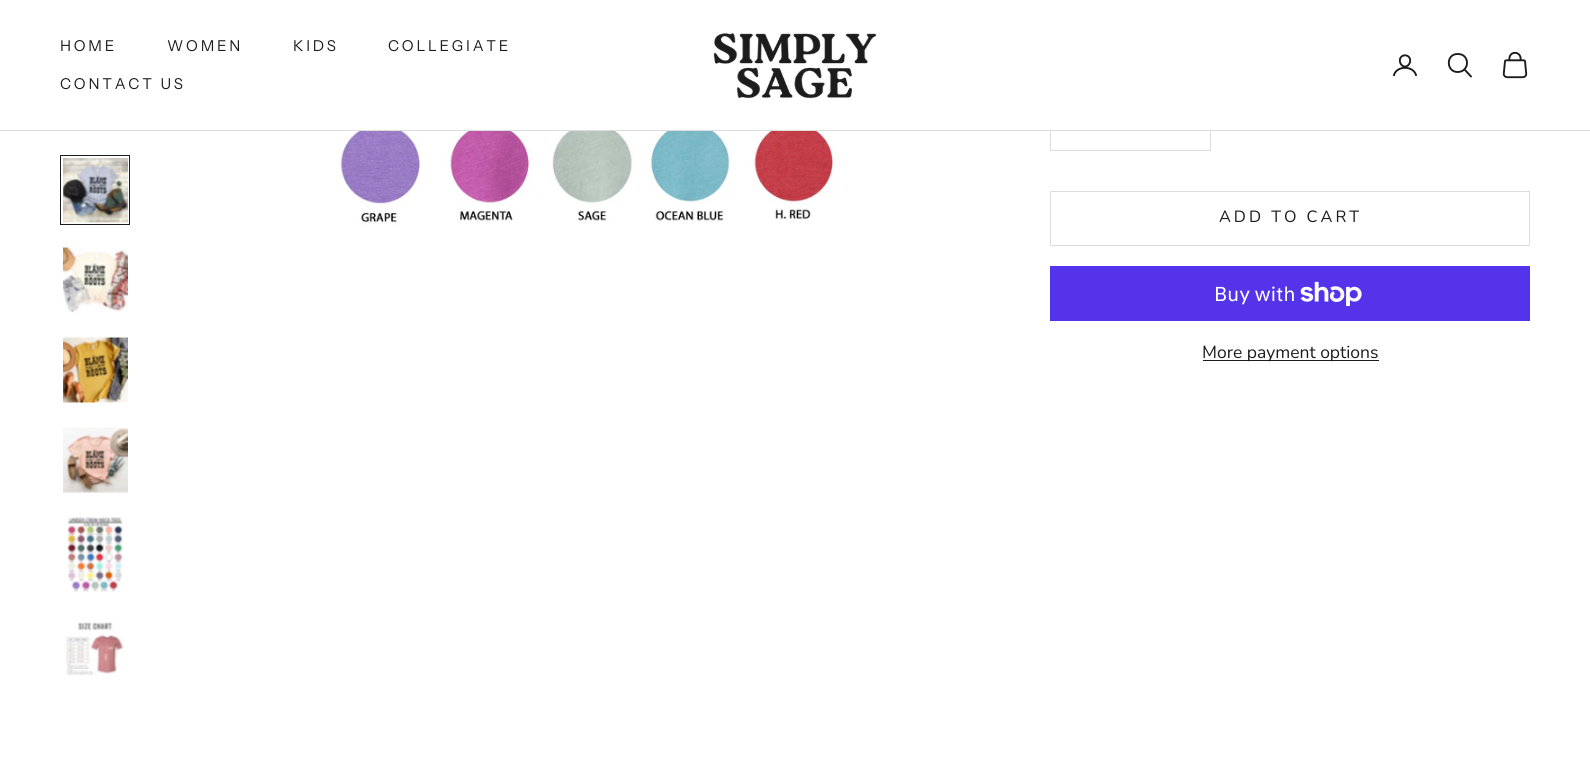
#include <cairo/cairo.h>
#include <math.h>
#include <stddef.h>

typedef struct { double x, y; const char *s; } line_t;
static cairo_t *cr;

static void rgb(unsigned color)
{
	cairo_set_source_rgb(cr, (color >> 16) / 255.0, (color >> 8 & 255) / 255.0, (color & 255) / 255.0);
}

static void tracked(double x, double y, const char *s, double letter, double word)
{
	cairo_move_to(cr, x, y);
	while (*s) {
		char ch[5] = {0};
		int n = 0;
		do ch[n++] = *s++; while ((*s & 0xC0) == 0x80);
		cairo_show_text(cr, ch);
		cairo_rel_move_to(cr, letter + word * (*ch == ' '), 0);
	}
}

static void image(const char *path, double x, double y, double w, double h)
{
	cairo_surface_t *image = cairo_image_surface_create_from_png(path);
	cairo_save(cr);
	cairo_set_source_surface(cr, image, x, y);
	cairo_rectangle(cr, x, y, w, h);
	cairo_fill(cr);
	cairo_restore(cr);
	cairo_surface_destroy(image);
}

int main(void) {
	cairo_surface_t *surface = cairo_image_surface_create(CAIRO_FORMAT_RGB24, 1590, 761);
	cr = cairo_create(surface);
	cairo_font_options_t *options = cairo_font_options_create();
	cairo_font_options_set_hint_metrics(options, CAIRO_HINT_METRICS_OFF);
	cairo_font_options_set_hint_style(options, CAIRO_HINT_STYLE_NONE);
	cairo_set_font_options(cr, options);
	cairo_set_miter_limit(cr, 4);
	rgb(0xffffff);
	cairo_paint(cr);
	cairo_rectangle(cr, 1050.5, 94.5, 160, 56);
	rgb(0xdddddd);
	cairo_set_line_width(cr, 1);
	cairo_stroke(cr);
	rgb(0xffffff);
	cairo_rectangle(cr, 1050, 94, 161, 36);
	cairo_fill(cr);
	rgb(0xdddddd);
	cairo_rectangle(cr, 0, 130, 1590, 1);
	cairo_fill(cr);
	image("img/1.png", 713, 33, 164, 66);
	image("img/2.png", 1392, 54, 26, 23);
	cairo_new_path(cr);
	cairo_move_to(cr, 1458, 54);
	cairo_curve_to(cr, 1445.5, 53.5, 1446, 72.5, 1458, 72);
	cairo_curve_to(cr, 1470, 71.5, 1470, 54, 1458, 54);
	cairo_close_path(cr);
	rgb(0x1c1c1c);
	cairo_set_line_width(cr, 1.9);
	cairo_stroke(cr);
	cairo_new_path(cr);
	cairo_move_to(cr, 1465, 70);
	cairo_line_to(cr, 1471, 76.5);
	cairo_set_line_cap(cr, CAIRO_LINE_CAP_ROUND);
	cairo_stroke(cr);
	image("img/3.png", 1502, 51, 26, 28);
	cairo_rectangle(cr, 60.5, 155.5, 69, 69);
	cairo_set_line_width(cr, 1);
	cairo_set_line_cap(cr, CAIRO_LINE_CAP_BUTT);
	cairo_stroke(cr);
	image("img/4.png", 63, 158, 65, 65);
	image("img/5.png", 63, 247, 65, 66);
	image("img/6.png", 63, 337, 65, 66);
	image("img/7.png", 63, 427, 65, 66);
	image("img/8.png", 66, 517, 62, 75);
	image("img/9.png", 65, 622, 59, 54);
	image("img/10.png", 295, 131, 590, 94);
	cairo_rectangle(cr, 1050.5, 191.5, 479, 54);
	rgb(0xdddddd);
	cairo_stroke(cr);
	rgb(0x5433eb);
	cairo_rectangle(cr, 1050, 266, 480, 55);
	cairo_fill(cr);
	image("img/11.png", 1300, 281, 62, 25);
	rgb(0x1c1c1c);
	cairo_rectangle(cr, 1203, 360, 176, 1);
	cairo_fill(cr);
	cairo_select_font_face(cr, "Instrument Sans", CAIRO_FONT_SLANT_NORMAL, CAIRO_FONT_WEIGHT_NORMAL);
	cairo_set_font_size(cr, 15);
	{
		static const line_t items[] = {
			{60, 51, "HOME"},
			{167, 51, "WOMEN"},
			{293, 51, "KIDS"},
			{388, 51, "COLLEGIATE"},
			{60, 89, "CONTACT US"},
		};
		for (size_t i = 0; i < sizeof items / sizeof *items; i++) {
			tracked(items[i].x, items[i].y, items[i].s, 2.75, 0);
		}
	}
	cairo_select_font_face(cr, "Nunito", CAIRO_FONT_SLANT_NORMAL, CAIRO_FONT_WEIGHT_NORMAL);
	cairo_set_font_size(cr, 16.25);
	tracked(1219, 222, "ADD TO CART", 3, 0);
	cairo_select_font_face(cr, "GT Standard", CAIRO_FONT_SLANT_NORMAL, CAIRO_FONT_WEIGHT_NORMAL);
	cairo_set_font_size(cr, 20);
	rgb(0xffffff);
	cairo_move_to(cr, 1214, 301);
	cairo_show_text(cr, "Buy with");
	cairo_select_font_face(cr, "Nunito", CAIRO_FONT_SLANT_NORMAL, CAIRO_FONT_WEIGHT_NORMAL);
	cairo_set_font_size(cr, 17.5);
	rgb(0x1c1c1c);
	cairo_move_to(cr, 1202, 358);
	cairo_show_text(cr, "More payment options");
	cairo_surface_write_to_png(surface, "page.png");
	cairo_font_options_destroy(options);
	cairo_destroy(cr);
	cairo_surface_destroy(surface);
	return 0;
}
